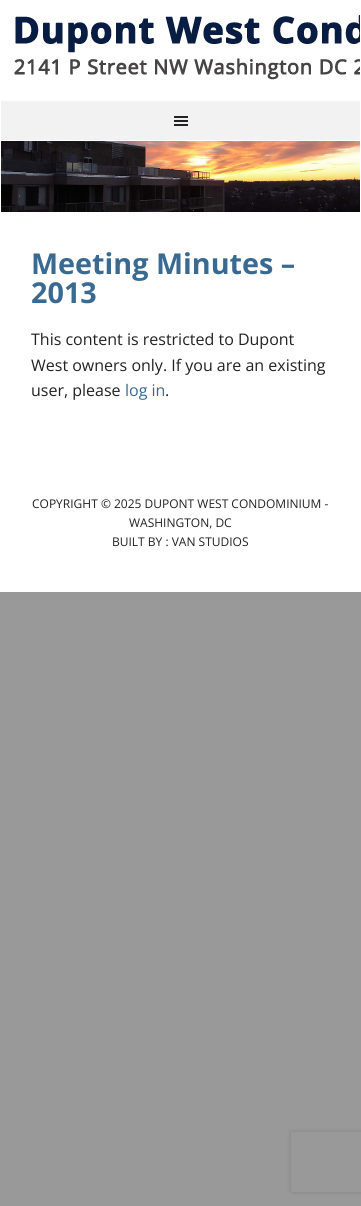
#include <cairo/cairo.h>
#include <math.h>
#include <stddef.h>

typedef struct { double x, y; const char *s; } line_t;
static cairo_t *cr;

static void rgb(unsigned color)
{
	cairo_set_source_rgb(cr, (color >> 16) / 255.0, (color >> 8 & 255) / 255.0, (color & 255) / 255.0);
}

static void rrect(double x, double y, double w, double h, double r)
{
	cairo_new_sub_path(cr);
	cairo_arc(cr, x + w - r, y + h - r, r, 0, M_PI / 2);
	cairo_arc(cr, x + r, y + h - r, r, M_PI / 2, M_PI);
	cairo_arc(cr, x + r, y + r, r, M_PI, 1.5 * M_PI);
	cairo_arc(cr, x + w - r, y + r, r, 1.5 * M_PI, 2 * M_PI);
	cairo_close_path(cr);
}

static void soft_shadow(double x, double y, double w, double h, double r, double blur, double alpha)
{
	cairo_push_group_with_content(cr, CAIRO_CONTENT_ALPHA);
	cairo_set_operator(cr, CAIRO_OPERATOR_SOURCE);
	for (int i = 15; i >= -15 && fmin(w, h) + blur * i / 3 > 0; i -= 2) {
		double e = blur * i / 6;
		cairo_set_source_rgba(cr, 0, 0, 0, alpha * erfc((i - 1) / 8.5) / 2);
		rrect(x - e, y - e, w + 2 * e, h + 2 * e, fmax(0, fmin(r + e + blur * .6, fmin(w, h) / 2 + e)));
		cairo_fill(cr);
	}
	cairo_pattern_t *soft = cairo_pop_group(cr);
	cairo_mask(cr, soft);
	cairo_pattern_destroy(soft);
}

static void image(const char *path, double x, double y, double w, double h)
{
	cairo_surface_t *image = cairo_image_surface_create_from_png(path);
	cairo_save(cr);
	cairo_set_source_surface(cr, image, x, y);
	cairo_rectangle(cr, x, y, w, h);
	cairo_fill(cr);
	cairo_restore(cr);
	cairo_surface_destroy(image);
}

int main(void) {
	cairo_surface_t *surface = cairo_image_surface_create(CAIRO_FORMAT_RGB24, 361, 1206);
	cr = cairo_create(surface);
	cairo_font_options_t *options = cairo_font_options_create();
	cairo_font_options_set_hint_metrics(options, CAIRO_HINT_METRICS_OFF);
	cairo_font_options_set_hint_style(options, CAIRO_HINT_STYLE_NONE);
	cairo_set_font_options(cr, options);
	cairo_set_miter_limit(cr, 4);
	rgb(0x999999);
	cairo_paint(cr);
	rgb(0xffffff);
	cairo_rectangle(cr, 0, 0, 361, 592);
	cairo_fill(cr);
	image("img/1.png", 14, 15, 346, 65);
	rgb(0xf2f2f2);
	cairo_rectangle(cr, 1, 101, 359, 39);
	cairo_fill(cr);
	image("img/2.png", 174, 116, 14, 10);
	image("img/3.png", 1, 141, 359, 71);
	cairo_save(cr);
	cairo_set_fill_rule(cr, CAIRO_FILL_RULE_EVEN_ODD);
	cairo_new_path(cr);
	cairo_move_to(cr, 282, 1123);
	cairo_line_to(cr, 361, 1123);
	cairo_line_to(cr, 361, 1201);
	cairo_line_to(cr, 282, 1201);
	cairo_close_path(cr);
	cairo_move_to(cr, 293, 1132);
	cairo_line_to(cr, 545, 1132);
	cairo_curve_to(cr, 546, 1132, 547, 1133, 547, 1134);
	cairo_line_to(cr, 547, 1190);
	cairo_curve_to(cr, 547, 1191, 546, 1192, 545, 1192);
	cairo_line_to(cr, 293, 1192);
	cairo_curve_to(cr, 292, 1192, 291, 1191, 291, 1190);
	cairo_line_to(cr, 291, 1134);
	cairo_curve_to(cr, 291, 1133, 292, 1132, 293, 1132);
	cairo_close_path(cr);
	cairo_clip(cr);
	rgb(0x808080);
	soft_shadow(291, 1132, 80, 60, 2, 2.5, 1);
	cairo_restore(cr);
	cairo_select_font_face(cr, "Open Sans", CAIRO_FONT_SLANT_NORMAL, CAIRO_FONT_WEIGHT_BOLD);
	cairo_set_font_size(cr, 28.75);
	rgb(0x396a92);
	cairo_move_to(cr, 31, 274);
	cairo_show_text(cr, "Meeting Minutes –");
	cairo_move_to(cr, 31, 303);
	cairo_show_text(cr, "2013");
	cairo_select_font_face(cr, "Open Sans", CAIRO_FONT_SLANT_NORMAL, CAIRO_FONT_WEIGHT_NORMAL);
	cairo_set_font_size(cr, 16);
	rgb(0x222222);
	{
		static const line_t items[] = {
			{31, 345, "This content is restricted to Dupont"},
			{31, 371, "West owners only. If you are an existing"},
			{31, 396, "user, please"},
		};
		for (size_t i = 0; i < sizeof items / sizeof *items; i++) {
			cairo_move_to(cr, items[i].x, items[i].y);
			cairo_show_text(cr, items[i].s);
		}
	}
	rgb(0x396a92);
	cairo_move_to(cr, 125, 396);
	cairo_show_text(cr, "log in");
	rgb(0x222222);
	cairo_move_to(cr, 165, 396);
	cairo_show_text(cr, ".");
	cairo_set_font_size(cr, 12);
	{
		static const line_t items[] = {
			{32, 508, "COPYRIGHT © 2025 DUPONT WEST CONDOMINIUM -"},
			{129, 527, "WASHINGTON, DC"},
			{112, 546, "BUILT BY : VAN STUDIOS"},
		};
		for (size_t i = 0; i < sizeof items / sizeof *items; i++) {
			cairo_move_to(cr, items[i].x, items[i].y);
			cairo_show_text(cr, items[i].s);
		}
	}
	cairo_surface_write_to_png(surface, "page.png");
	cairo_font_options_destroy(options);
	cairo_destroy(cr);
	cairo_surface_destroy(surface);
	return 0;
}
